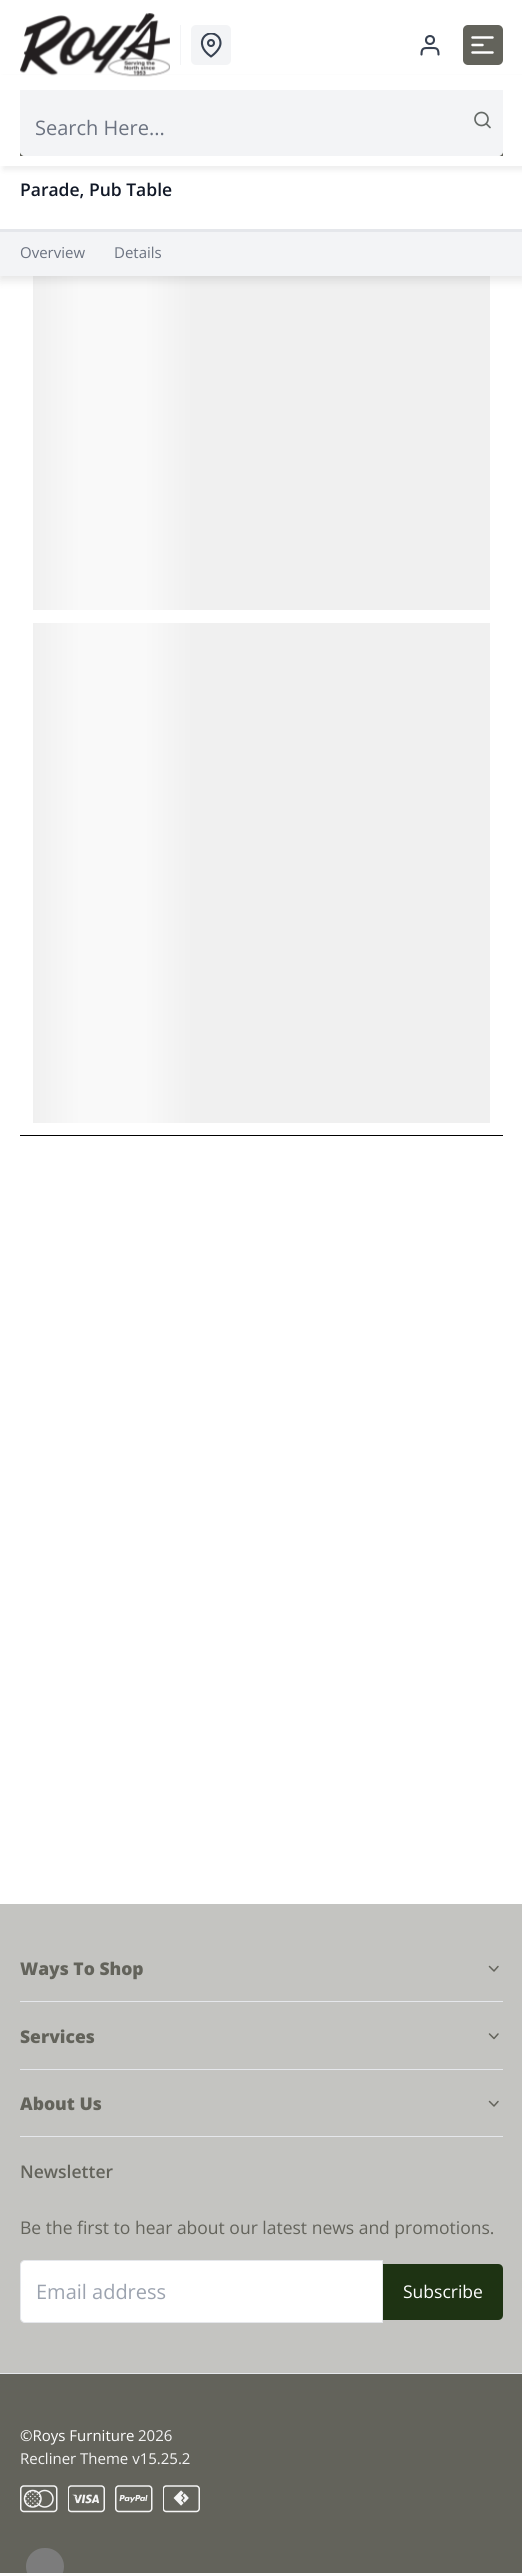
#include <cairo/cairo.h>
#include <math.h>
#include <stddef.h>

typedef struct { double x, y; const char *s; } line_t;
typedef struct { double x, y, w, h; unsigned color; } box_t;
static cairo_t *cr;

static void rgb(unsigned color)
{
	cairo_set_source_rgb(cr, (color >> 16) / 255.0, (color >> 8 & 255) / 255.0, (color & 255) / 255.0);
}

static void rrect(double x, double y, double w, double h, double r)
{
	cairo_new_sub_path(cr);
	cairo_arc(cr, x + w - r, y + h - r, r, 0, M_PI / 2);
	cairo_arc(cr, x + r, y + h - r, r, M_PI / 2, M_PI);
	cairo_arc(cr, x + r, y + r, r, M_PI, 1.5 * M_PI);
	cairo_arc(cr, x + w - r, y + r, r, 1.5 * M_PI, 2 * M_PI);
	cairo_close_path(cr);
}

static void soft_shadow(double x, double y, double w, double h, double r, double blur, double alpha)
{
	cairo_push_group_with_content(cr, CAIRO_CONTENT_ALPHA);
	cairo_set_operator(cr, CAIRO_OPERATOR_SOURCE);
	for (int i = 15; i >= -15 && fmin(w, h) + blur * i / 3 > 0; i -= 2) {
		double e = blur * i / 6;
		cairo_set_source_rgba(cr, 0, 0, 0, alpha * erfc((i - 1) / 8.5) / 2);
		rrect(x - e, y - e, w + 2 * e, h + 2 * e, fmax(0, fmin(r + e + blur * .6, fmin(w, h) / 2 + e)));
		cairo_fill(cr);
	}
	cairo_pattern_t *soft = cairo_pop_group(cr);
	cairo_mask(cr, soft);
	cairo_pattern_destroy(soft);
}

static void image(const char *path, double x, double y, double w, double h)
{
	cairo_surface_t *image = cairo_image_surface_create_from_png(path);
	cairo_save(cr);
	cairo_set_source_surface(cr, image, x, y);
	cairo_rectangle(cr, x, y, w, h);
	cairo_fill(cr);
	cairo_restore(cr);
	cairo_surface_destroy(image);
}

int main(void) {
	cairo_surface_t *surface = cairo_image_surface_create(CAIRO_FORMAT_RGB24, 522, 2573);
	cr = cairo_create(surface);
	cairo_font_options_t *options = cairo_font_options_create();
	cairo_font_options_set_hint_metrics(options, CAIRO_HINT_METRICS_OFF);
	cairo_font_options_set_hint_style(options, CAIRO_HINT_STYLE_NONE);
	cairo_set_font_options(cr, options);
	cairo_set_miter_limit(cr, 4);
	cairo_pattern_t *gradient;
	rgb(0xffffff);
	cairo_paint(cr);
	rgb(0xf0f0f0);
	cairo_rectangle(cr, 33, 276, 457, 334);
	cairo_fill(cr);
	gradient = cairo_pattern_create_linear(32, 360, 193, 360);
	cairo_pattern_add_color_stop_rgba(gradient, 0, 0.941, 0.941, 0.941, 1);
	cairo_pattern_add_color_stop_rgba(gradient, 0.3, 0.976, 0.976, 0.976, 1);
	cairo_pattern_add_color_stop_rgba(gradient, 0.7, 0.976, 0.976, 0.976, 1);
	cairo_pattern_add_color_stop_rgba(gradient, 1, 0.941, 0.941, 0.941, 1);
	cairo_set_source(cr, gradient);
	cairo_pattern_destroy(gradient);
	cairo_new_path(cr);
	cairo_move_to(cr, 39, 110);
	cairo_line_to(cr, 193, 110);
	cairo_line_to(cr, 193, 610);
	cairo_line_to(cr, 39, 610);
	cairo_curve_to(cr, 35.5, 610, 33, 607.5, 33, 604);
	cairo_line_to(cr, 33, 116);
	cairo_curve_to(cr, 33, 112.5, 35.5, 110, 39, 110);
	cairo_close_path(cr);
	cairo_fill(cr);
	rgb(0x000000);
	soft_shadow(0, 166, 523, 114, 0, 5, 0.11);
	rgb(0xffffff);
	cairo_rectangle(cr, 0, 166, 522, 63);
	cairo_fill(cr);
	rgb(0x000000);
	soft_shadow(3, 78, 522, 92, 0, 3, 0.07);
	rgb(0xffffff);
	cairo_rectangle(cr, 0, 90, 522, 76);
	cairo_fill(cr);
	rgb(0x63635b);
	cairo_rectangle(cr, 20, 151, 483, 5);
	cairo_fill(cr);
	rgb(0xf3f4f6);
	rrect(20, 84, 483, 72, 5);
	cairo_fill(cr);
	rgb(0xffffff);
	cairo_rectangle(cr, 0, 75, 522, 15);
	cairo_fill(cr);
	image("img/1.png", 20, 13, 150, 64);
	rgb(0xf3f4f6);
	cairo_rectangle(cr, 180, 25, 1, 40);
	cairo_fill(cr);
	rrect(191, 25, 40, 40, 5);
	cairo_fill(cr);
	cairo_save(cr);
	cairo_rectangle(cr, 199, 33, 25, 25);
	cairo_clip(cr);
	cairo_new_path(cr);
	cairo_move_to(cr, 220.5, 43);
	cairo_curve_to(cr, 220.5, 50, 211, 56.5, 211, 56.5);
	cairo_curve_to(cr, 191.5, 43, 208, 26.5, 218, 36.5);
	cairo_curve_to(cr, 219.5, 38, 220.5, 40.5, 220.5, 43);
	cairo_close_path(cr);
	rgb(0x374151);
	cairo_set_line_width(cr, 2.1);
	cairo_set_line_cap(cr, CAIRO_LINE_CAP_ROUND);
	cairo_set_line_join(cr, CAIRO_LINE_JOIN_ROUND);
	cairo_stroke(cr);
	cairo_restore(cr);
	cairo_arc(cr, 211, 43, 3, 0, 2 * M_PI);
	rgb(0x374151);
	cairo_set_line_width(cr, 2.1);
	cairo_stroke(cr);
	cairo_new_path(cr);
	cairo_move_to(cr, 438.5, 54.5);
	cairo_curve_to(cr, 438.5, 47.5, 436, 48, 430, 48);
	cairo_curve_to(cr, 424, 48, 421.5, 47.5, 421.5, 54.5);
	cairo_set_line_cap(cr, CAIRO_LINE_CAP_ROUND);
	cairo_set_line_join(cr, CAIRO_LINE_JOIN_ROUND);
	cairo_stroke(cr);
	cairo_arc(cr, 430, 40, 4, 0, 2 * M_PI);
	cairo_set_line_cap(cr, CAIRO_LINE_CAP_BUTT);
	cairo_set_line_join(cr, CAIRO_LINE_JOIN_MITER);
	cairo_stroke(cr);
	rgb(0x63635b);
	rrect(463, 25, 40, 40, 5);
	cairo_fill(cr);
	cairo_new_path(cr);
	cairo_move_to(cr, 472.5, 37.5);
	cairo_line_to(cr, 492.5, 37.5);
	cairo_move_to(cr, 472.5, 45);
	cairo_line_to(cr, 482.5, 45);
	cairo_move_to(cr, 472.5, 52.5);
	cairo_line_to(cr, 492.5, 52.5);
	rgb(0xffffff);
	cairo_set_line_width(cr, 2.5);
	cairo_set_line_cap(cr, CAIRO_LINE_CAP_ROUND);
	cairo_set_line_join(cr, CAIRO_LINE_JOIN_ROUND);
	cairo_stroke(cr);
	rgb(0xf3f4f6);
	rrect(20, 99, 483, 57, 5);
	cairo_fill(cr);
	cairo_arc(cr, 481.5, 119, 6.5, 0, 2 * M_PI);
	rgb(0x656a67);
	cairo_set_line_width(cr, 1.7);
	cairo_set_line_cap(cr, CAIRO_LINE_CAP_BUTT);
	cairo_set_line_join(cr, CAIRO_LINE_JOIN_MITER);
	cairo_stroke(cr);
	cairo_new_path(cr);
	cairo_move_to(cr, 490, 127.5);
	cairo_line_to(cr, 486.5, 124);
	cairo_set_line_cap(cr, CAIRO_LINE_CAP_ROUND);
	cairo_set_line_join(cr, CAIRO_LINE_JOIN_ROUND);
	cairo_stroke(cr);
	rgb(0x000000);
	cairo_rectangle(cr, 20, 1135, 483, 1);
	cairo_fill(cr);
	rgb(0xf0f0f0);
	cairo_rectangle(cr, 33, 623, 457, 500);
	cairo_fill(cr);
	gradient = cairo_pattern_create_linear(32, 873, 193, 873);
	cairo_pattern_add_color_stop_rgba(gradient, 0, 0.941, 0.941, 0.941, 1);
	cairo_pattern_add_color_stop_rgba(gradient, 0.3, 0.976, 0.976, 0.976, 1);
	cairo_pattern_add_color_stop_rgba(gradient, 0.7, 0.976, 0.976, 0.976, 1);
	cairo_pattern_add_color_stop_rgba(gradient, 1, 0.941, 0.941, 0.941, 1);
	cairo_set_source(cr, gradient);
	cairo_pattern_destroy(gradient);
	cairo_new_path(cr);
	cairo_move_to(cr, 39, 623);
	cairo_line_to(cr, 193, 623);
	cairo_line_to(cr, 193, 1123);
	cairo_line_to(cr, 39, 1123);
	cairo_curve_to(cr, 35.5, 1123, 33, 1120.5, 33, 1117);
	cairo_line_to(cr, 33, 629);
	cairo_curve_to(cr, 33, 625.5, 35.5, 623, 39, 623);
	cairo_close_path(cr);
	cairo_fill(cr);
	{
		static const box_t items[] = {
			{0, 232, 522, 44, 0xf3f4f6},
			{0, 229, 522, 3, 0xe5e7eb},
			{0, 1904, 522, 469, 0xc4c4c1},
			{0, 2373, 522, 1, 0xe5e7eb},
			{20, 2001, 483, 1, 0xe5e7eb},
		};
		for (size_t i = 0; i < sizeof items / sizeof *items; i++) {
			rgb(items[i].color);
			cairo_rectangle(cr, items[i].x, items[i].y, items[i].w, items[i].h);
			cairo_fill(cr);
		}
	}
	cairo_new_path(cr);
	cairo_move_to(cr, 489.5, 1966.5);
	cairo_line_to(cr, 494, 1971);
	cairo_line_to(cr, 498, 1966.5);
	rgb(0x63635b);
	cairo_set_line_width(cr, 1.5);
	cairo_stroke(cr);
	rgb(0xe5e7eb);
	cairo_rectangle(cr, 20, 2069, 483, 1);
	cairo_fill(cr);
	cairo_new_path(cr);
	cairo_move_to(cr, 489.5, 2034);
	cairo_line_to(cr, 494, 2038.5);
	cairo_line_to(cr, 498, 2034);
	rgb(0x63635b);
	cairo_stroke(cr);
	rgb(0xe5e7eb);
	cairo_rectangle(cr, 20, 2136, 483, 1);
	cairo_fill(cr);
	cairo_new_path(cr);
	cairo_move_to(cr, 489.5, 2101.5);
	cairo_line_to(cr, 494, 2106);
	cairo_line_to(cr, 498, 2101.5);
	rgb(0x63635b);
	cairo_stroke(cr);
	rgb(0xffffff);
	cairo_new_path(cr);
	cairo_move_to(cr, 25, 2260.5);
	cairo_line_to(cr, 382.5, 2260.5);
	cairo_line_to(cr, 382.5, 2322.5);
	cairo_line_to(cr, 25, 2322.5);
	cairo_curve_to(cr, 22.5, 2322.5, 20.5, 2320.5, 20.5, 2318);
	cairo_line_to(cr, 20.5, 2265);
	cairo_curve_to(cr, 20.5, 2262.5, 22.5, 2260.5, 25, 2260.5);
	cairo_close_path(cr);
	cairo_fill_preserve(cr);
	rgb(0xe5e7eb);
	cairo_set_line_width(cr, 1);
	cairo_set_line_cap(cr, CAIRO_LINE_CAP_BUTT);
	cairo_set_line_join(cr, CAIRO_LINE_JOIN_MITER);
	cairo_stroke(cr);
	rgb(0x1e3313);
	cairo_new_path(cr);
	cairo_move_to(cr, 383, 2264);
	cairo_line_to(cr, 498, 2264);
	cairo_curve_to(cr, 501, 2264, 503, 2266, 503, 2269);
	cairo_line_to(cr, 503, 2315);
	cairo_curve_to(cr, 503, 2318, 501, 2320, 498, 2320);
	cairo_line_to(cr, 383, 2320);
	cairo_close_path(cr);
	cairo_fill(cr);
	rgb(0x63635b);
	cairo_rectangle(cr, 0, 2374, 522, 199);
	cairo_fill(cr);
	image("img/2.png", 20, 2485, 38, 28);
	image("img/3.png", 68, 2485, 37, 28);
	image("img/4.png", 115, 2485, 38, 28);
	image("img/5.png", 163, 2485, 37, 28);
	rgb(0x7c7c7c);
	rrect(26, 2548, 38, 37, 18.5);
	cairo_fill(cr);
	cairo_select_font_face(cr, "Open Sans", CAIRO_FONT_SLANT_NORMAL, CAIRO_FONT_WEIGHT_NORMAL);
	cairo_set_font_size(cr, 20);
	rgb(0x6b7280);
	cairo_move_to(cr, 35, 135);
	cairo_show_text(cr, "Search Here...");
	cairo_select_font_face(cr, "Open Sans SemiBold", CAIRO_FONT_SLANT_NORMAL, CAIRO_FONT_WEIGHT_NORMAL);
	cairo_set_font_size(cr, 17.5);
	rgb(0x111827);
	cairo_move_to(cr, 20, 196);
	cairo_show_text(cr, "Parade, Pub Table");
	cairo_select_font_face(cr, "Open Sans", CAIRO_FONT_SLANT_NORMAL, CAIRO_FONT_WEIGHT_NORMAL);
	cairo_set_font_size(cr, 15);
	rgb(0x6b7280);
	cairo_move_to(cr, 20, 258);
	cairo_show_text(cr, "Overview");
	cairo_move_to(cr, 114, 258);
	cairo_show_text(cr, "Details");
	cairo_select_font_face(cr, "Open Sans ExtraBold", CAIRO_FONT_SLANT_NORMAL, CAIRO_FONT_WEIGHT_NORMAL);
	cairo_set_font_size(cr, 17.5);
	rgb(0x63635b);
	{
		static const line_t items[] = {
			{20, 1975, "Ways To Shop"},
			{20, 2043, "Services"},
			{20, 2110, "About Us"},
		};
		for (size_t i = 0; i < sizeof items / sizeof *items; i++) {
			cairo_move_to(cr, items[i].x, items[i].y);
			cairo_show_text(cr, items[i].s);
		}
	}
	cairo_select_font_face(cr, "Open Sans SemiBold", CAIRO_FONT_SLANT_NORMAL, CAIRO_FONT_WEIGHT_NORMAL);
	cairo_move_to(cr, 20, 2178);
	cairo_show_text(cr, "Newsletter");
	cairo_select_font_face(cr, "Open Sans", CAIRO_FONT_SLANT_NORMAL, CAIRO_FONT_WEIGHT_NORMAL);
	cairo_move_to(cr, 20, 2234);
	cairo_show_text(cr, "Be the first to hear about our latest news and promotions.");
	cairo_set_font_size(cr, 20);
	rgb(0x9ca3af);
	cairo_move_to(cr, 36, 2299);
	cairo_show_text(cr, "Email address");
	cairo_set_font_size(cr, 17.5);
	rgb(0xffffff);
	cairo_move_to(cr, 403, 2298);
	cairo_show_text(cr, "Subscribe");
	cairo_set_font_size(cr, 15);
	cairo_move_to(cr, 20, 2441);
	cairo_show_text(cr, "©Roys Furniture");
	rgb(0xf5f5f5);
	cairo_move_to(cr, 138, 2441);
	cairo_show_text(cr, "2026");
	cairo_move_to(cr, 20, 2464);
	cairo_show_text(cr, "Recliner Theme v15.25.2");
	cairo_surface_write_to_png(surface, "page.png");
	cairo_font_options_destroy(options);
	cairo_destroy(cr);
	cairo_surface_destroy(surface);
	return 0;
}
